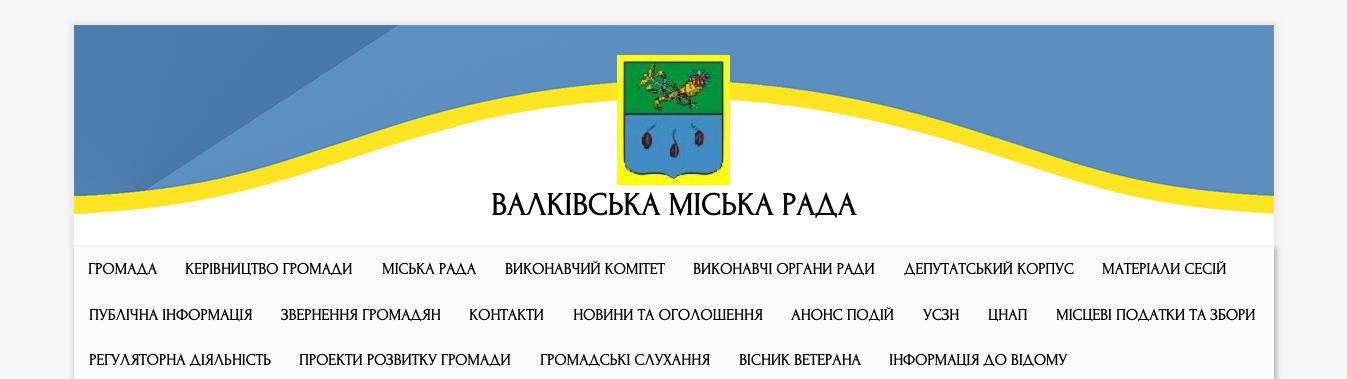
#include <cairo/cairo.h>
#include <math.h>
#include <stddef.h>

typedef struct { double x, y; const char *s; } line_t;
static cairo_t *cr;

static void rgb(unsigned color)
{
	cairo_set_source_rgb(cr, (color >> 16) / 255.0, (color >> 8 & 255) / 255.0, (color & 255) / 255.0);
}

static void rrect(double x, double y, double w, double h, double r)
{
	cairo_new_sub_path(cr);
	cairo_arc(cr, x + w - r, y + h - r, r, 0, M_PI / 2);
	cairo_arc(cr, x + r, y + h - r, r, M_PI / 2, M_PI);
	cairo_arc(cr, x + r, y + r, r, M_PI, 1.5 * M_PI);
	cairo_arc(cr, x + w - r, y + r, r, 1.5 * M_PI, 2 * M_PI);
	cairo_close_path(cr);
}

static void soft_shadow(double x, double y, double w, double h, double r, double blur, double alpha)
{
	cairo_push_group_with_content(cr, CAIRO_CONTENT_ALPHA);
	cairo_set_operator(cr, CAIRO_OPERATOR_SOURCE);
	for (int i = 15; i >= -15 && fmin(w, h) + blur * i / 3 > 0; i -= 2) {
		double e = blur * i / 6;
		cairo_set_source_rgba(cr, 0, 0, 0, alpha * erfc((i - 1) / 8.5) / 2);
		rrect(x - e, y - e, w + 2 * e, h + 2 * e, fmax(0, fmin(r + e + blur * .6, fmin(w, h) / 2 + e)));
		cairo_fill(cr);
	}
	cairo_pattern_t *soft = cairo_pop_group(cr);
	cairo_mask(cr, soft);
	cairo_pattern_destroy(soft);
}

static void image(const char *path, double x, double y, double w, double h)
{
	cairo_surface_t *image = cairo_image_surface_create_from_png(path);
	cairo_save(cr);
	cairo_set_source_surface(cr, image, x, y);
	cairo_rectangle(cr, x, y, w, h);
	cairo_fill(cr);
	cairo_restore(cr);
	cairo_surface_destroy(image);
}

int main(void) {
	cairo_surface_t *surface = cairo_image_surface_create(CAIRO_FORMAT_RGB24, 1347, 379);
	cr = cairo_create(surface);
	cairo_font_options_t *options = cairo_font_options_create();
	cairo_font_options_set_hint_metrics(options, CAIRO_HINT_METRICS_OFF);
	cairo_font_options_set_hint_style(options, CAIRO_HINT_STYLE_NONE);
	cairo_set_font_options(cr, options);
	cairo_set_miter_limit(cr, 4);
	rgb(0xf7f7f7);
	cairo_paint(cr);
	rgb(0x323232);
	soft_shadow(74, 25, 1200, 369, 0, 5, 0.17);
	rgb(0xffffff);
	cairo_rectangle(cr, 74, 25, 1200, 222);
	cairo_fill(cr);
	image("img/1.png", 74, 25, 1200, 189);
	image("img/2.png", 617, 55, 113, 130);
	rgb(0xfbfbfb);
	cairo_rectangle(cr, 74, 247, 1200, 132);
	cairo_fill(cr);
	cairo_save(cr);
	cairo_set_fill_rule(cr, CAIRO_FILL_RULE_EVEN_ODD);
	cairo_new_path(cr);
	cairo_move_to(cr, 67, 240);
	cairo_line_to(cr, 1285, 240);
	cairo_line_to(cr, 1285, 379);
	cairo_line_to(cr, 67, 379);
	cairo_close_path(cr);
	cairo_move_to(cr, 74, 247);
	cairo_line_to(cr, 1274, 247);
	cairo_line_to(cr, 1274, 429);
	cairo_line_to(cr, 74, 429);
	cairo_close_path(cr);
	cairo_clip(cr);
	rgb(0xafafaf);
	soft_shadow(76, 249, 1200, 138, 0, 2.5, 1);
	cairo_restore(cr);
	cairo_select_font_face(cr, "Forum", CAIRO_FONT_SLANT_NORMAL, CAIRO_FONT_WEIGHT_BOLD);
	cairo_set_font_size(cr, 32);
	rgb(0x000000);
	cairo_move_to(cr, 491, 215);
	cairo_show_text(cr, "ВАЛКІВСЬКА МІСЬКА РАДА");
	cairo_set_font_size(cr, 16);
	{
		static const line_t items[] = {
			{88, 274, "ГРОМАДА"},
			{185, 274, "КЕРІВНИЦТВО ГРОМАДИ"},
			{382, 274, "МIСЬКА РАДА"},
			{505, 274, "ВИКОНАВЧИЙ КОМIТЕТ"},
			{693, 274, "ВИКОНАВЧІ ОРГАНИ РАДИ"},
			{904, 274, "ДЕПУТАТСЬКИЙ КОРПУС"},
			{1102, 274, "МАТЕРІАЛИ СЕСІЙ"},
			{89, 320, "ПУБЛІЧНА ІНФОРМАЦІЯ"},
			{281, 320, "ЗВЕРНЕННЯ ГРОМАДЯН"},
			{469, 320, "КОНТАКТИ"},
			{573, 320, "НОВИНИ ТА ОГОЛОШЕННЯ"},
			{791, 320, "АНОНС ПОДІЙ"},
			{923, 320, "УСЗН"},
			{988, 320, "ЦНАП"},
			{1056, 320, "МІСЦЕВІ ПОДАТКИ ТА ЗБОРИ"},
			{89, 365, "РЕГУЛЯТОРНА ДІЯЛЬНІСТЬ"},
			{299, 365, "ПРОЕКТИ РОЗВИТКУ ГРОМАДИ"},
			{540, 365, "ГРОМАДСЬКІ СЛУХАННЯ"},
			{739, 365, "ВІСНИК ВЕТЕРАНА"},
			{889, 365, "ІНФОРМАЦІЯ ДО ВІДОМУ"},
		};
		for (size_t i = 0; i < sizeof items / sizeof *items; i++) {
			cairo_move_to(cr, items[i].x, items[i].y);
			cairo_show_text(cr, items[i].s);
		}
	}
	cairo_surface_write_to_png(surface, "page.png");
	cairo_font_options_destroy(options);
	cairo_destroy(cr);
	cairo_surface_destroy(surface);
	return 0;
}
